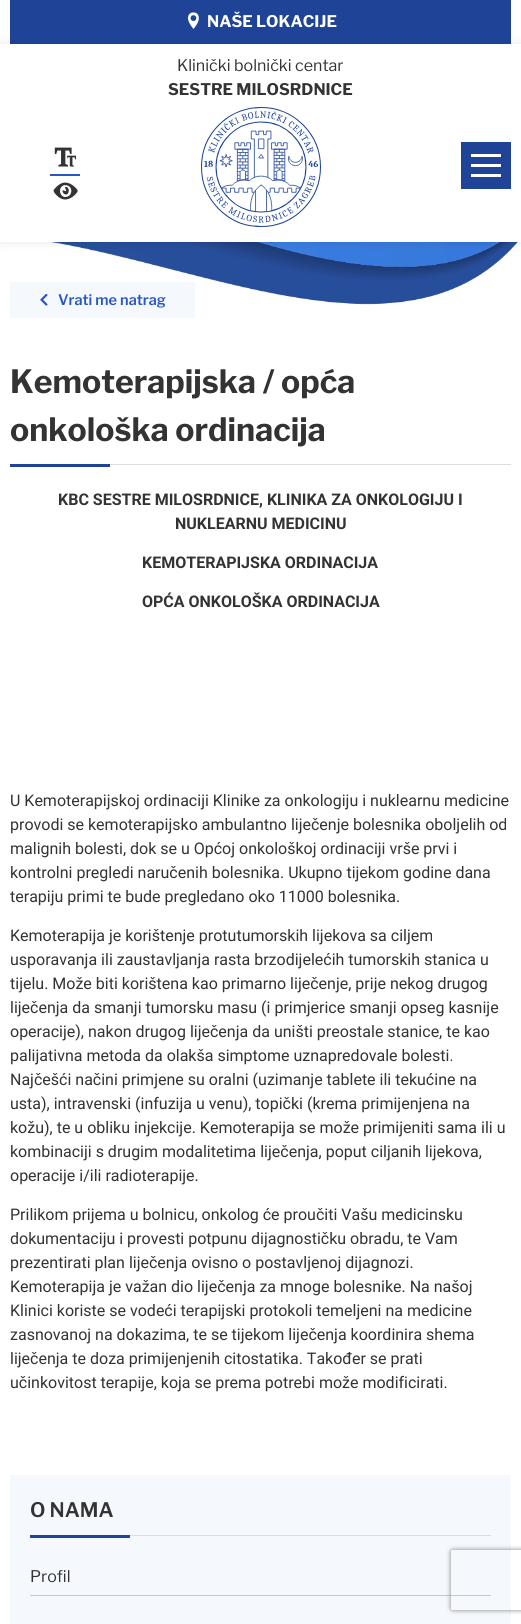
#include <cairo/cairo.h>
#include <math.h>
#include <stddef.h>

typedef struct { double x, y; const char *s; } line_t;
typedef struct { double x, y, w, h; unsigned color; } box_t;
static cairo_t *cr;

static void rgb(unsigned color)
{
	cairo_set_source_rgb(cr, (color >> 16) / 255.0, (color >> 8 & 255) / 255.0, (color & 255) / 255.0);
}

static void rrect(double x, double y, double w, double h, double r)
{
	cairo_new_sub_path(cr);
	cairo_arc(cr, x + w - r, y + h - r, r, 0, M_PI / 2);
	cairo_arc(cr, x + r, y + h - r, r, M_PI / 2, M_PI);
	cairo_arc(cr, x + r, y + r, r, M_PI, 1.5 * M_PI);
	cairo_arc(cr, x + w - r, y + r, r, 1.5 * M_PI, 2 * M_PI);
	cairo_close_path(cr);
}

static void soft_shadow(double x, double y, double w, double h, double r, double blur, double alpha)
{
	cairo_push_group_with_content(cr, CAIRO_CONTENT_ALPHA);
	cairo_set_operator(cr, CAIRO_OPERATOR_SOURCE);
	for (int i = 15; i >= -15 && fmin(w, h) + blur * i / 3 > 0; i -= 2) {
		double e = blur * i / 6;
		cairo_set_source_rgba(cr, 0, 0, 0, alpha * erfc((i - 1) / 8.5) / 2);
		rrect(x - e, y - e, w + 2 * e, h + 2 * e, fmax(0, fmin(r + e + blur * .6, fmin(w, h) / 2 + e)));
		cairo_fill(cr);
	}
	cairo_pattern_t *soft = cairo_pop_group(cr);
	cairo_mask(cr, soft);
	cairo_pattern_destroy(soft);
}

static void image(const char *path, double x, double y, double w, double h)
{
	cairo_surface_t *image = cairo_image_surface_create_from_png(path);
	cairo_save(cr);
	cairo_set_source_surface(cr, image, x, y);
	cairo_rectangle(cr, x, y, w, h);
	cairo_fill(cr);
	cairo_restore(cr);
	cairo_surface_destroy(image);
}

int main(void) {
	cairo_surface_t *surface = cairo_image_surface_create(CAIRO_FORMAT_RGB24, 521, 1624);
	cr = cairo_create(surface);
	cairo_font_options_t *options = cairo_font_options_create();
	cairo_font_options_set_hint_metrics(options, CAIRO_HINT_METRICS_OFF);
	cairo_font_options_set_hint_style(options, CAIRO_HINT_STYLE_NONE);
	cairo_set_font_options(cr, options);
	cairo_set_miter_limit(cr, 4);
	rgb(0xffffff);
	cairo_paint(cr);
	rgb(0x1f4497);
	cairo_rectangle(cr, 10, 0, 501, 44);
	cairo_fill(cr);
	image("img/1.png", 188, 12, 11, 17);
	image("img/5.png", 51, 242, 467, 63);
	cairo_save(cr);
	cairo_set_fill_rule(cr, CAIRO_FILL_RULE_EVEN_ODD);
	cairo_new_path(cr);
	cairo_move_to(cr, 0, 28);
	cairo_line_to(cr, 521, 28);
	cairo_line_to(cr, 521, 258);
	cairo_line_to(cr, 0, 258);
	cairo_close_path(cr);
	cairo_move_to(cr, 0, 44);
	cairo_line_to(cr, 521, 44);
	cairo_line_to(cr, 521, 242);
	cairo_line_to(cr, 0, 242);
	cairo_close_path(cr);
	cairo_clip(cr);
	rgb(0x000000);
	soft_shadow(0, 44, 521, 198, 0, 5, 0.1);
	cairo_restore(cr);
	rgb(0x2857c1);
	cairo_rectangle(cr, 50, 174, 30, 2);
	cairo_fill(cr);
	image("img/2.png", 54, 147, 23, 20);
	image("img/3.png", 53, 182, 25, 18);
	image("img/4.png", 201, 107, 120, 120);
	{
		static const box_t items[] = {
			{461, 142, 50, 47, 0x1f4497},
			{471, 154, 30, 3, 0xffffff},
			{471, 164, 30, 3, 0xffffff},
			{471, 174, 30, 3, 0xffffff},
			{10, 282, 185, 36, 0xf5f8fd},
		};
		for (size_t i = 0; i < sizeof items / sizeof *items; i++) {
			rgb(items[i].color);
			cairo_rectangle(cr, items[i].x, items[i].y, items[i].w, items[i].h);
			cairo_fill(cr);
		}
	}
	image("img/6.png", 40, 294, 8, 12);
	{
		static const box_t items[] = {
			{110, 464, 401, 1, 0xdddddd},
			{10, 464, 100, 3, 0x1f4497},
			{10, 1475, 501, 149, 0xf5f8fd},
			{130, 1535, 361, 1, 0xdddddd},
			{30, 1535, 100, 3, 0x1f4497},
			{30, 1595, 461, 1, 0xb6c8f0},
		};
		for (size_t i = 0; i < sizeof items / sizeof *items; i++) {
			rgb(items[i].color);
			cairo_rectangle(cr, items[i].x, items[i].y, items[i].w, items[i].h);
			cairo_fill(cr);
		}
	}
	cairo_save(cr);
	cairo_set_fill_rule(cr, CAIRO_FILL_RULE_EVEN_ODD);
	cairo_new_path(cr);
	cairo_move_to(cr, 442, 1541);
	cairo_line_to(cr, 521, 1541);
	cairo_line_to(cr, 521, 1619);
	cairo_line_to(cr, 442, 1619);
	cairo_close_path(cr);
	cairo_move_to(cr, 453, 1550);
	cairo_line_to(cr, 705, 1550);
	cairo_curve_to(cr, 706, 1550, 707, 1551, 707, 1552);
	cairo_line_to(cr, 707, 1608);
	cairo_curve_to(cr, 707, 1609, 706, 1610, 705, 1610);
	cairo_line_to(cr, 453, 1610);
	cairo_curve_to(cr, 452, 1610, 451, 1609, 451, 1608);
	cairo_line_to(cr, 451, 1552);
	cairo_curve_to(cr, 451, 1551, 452, 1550, 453, 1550);
	cairo_close_path(cr);
	cairo_clip(cr);
	rgb(0x808080);
	soft_shadow(451, 1550, 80, 60, 2, 2.5, 1);
	cairo_restore(cr);
	cairo_select_font_face(cr, "Libre Franklin", CAIRO_FONT_SLANT_NORMAL, CAIRO_FONT_WEIGHT_BOLD);
	cairo_set_font_size(cr, 16);
	rgb(0xffffff);
	cairo_move_to(cr, 207, 27);
	cairo_show_text(cr, "NAŠE LOKACIJE");
	cairo_select_font_face(cr, "Libre Franklin", CAIRO_FONT_SLANT_NORMAL, CAIRO_FONT_WEIGHT_NORMAL);
	rgb(0x333333);
	cairo_move_to(cr, 177, 71);
	cairo_show_text(cr, "Klinički bolnički centar");
	cairo_select_font_face(cr, "Libre Franklin", CAIRO_FONT_SLANT_NORMAL, CAIRO_FONT_WEIGHT_BOLD);
	cairo_move_to(cr, 168, 95);
	cairo_show_text(cr, "SESTRE MILOSRDNICE");
	cairo_select_font_face(cr, "Libre Franklin SemiBold", CAIRO_FONT_SLANT_NORMAL, CAIRO_FONT_WEIGHT_NORMAL);
	cairo_set_font_size(cr, 14.5);
	rgb(0x2857c1);
	cairo_move_to(cr, 58, 305);
	cairo_show_text(cr, "Vrati me natrag");
	cairo_select_font_face(cr, "Libre Franklin", CAIRO_FONT_SLANT_NORMAL, CAIRO_FONT_WEIGHT_BOLD);
	cairo_set_font_size(cr, 32);
	rgb(0x333333);
	cairo_move_to(cr, 10, 393);
	cairo_show_text(cr, "Kemoterapijska / opća");
	cairo_move_to(cr, 10, 441);
	cairo_show_text(cr, "onkološka ordinacija");
	cairo_select_font_face(cr, "Roboto", CAIRO_FONT_SLANT_NORMAL, CAIRO_FONT_WEIGHT_BOLD);
	cairo_set_font_size(cr, 16);
	{
		static const line_t items[] = {
			{58, 505, "KBC SESTRE MILOSRDNICE, KLINIKA ZA ONKOLOGIJU I"},
			{175, 529, "NUKLEARNU MEDICINU"},
			{142, 568, "KEMOTERAPIJSKA ORDINACIJA"},
			{142, 607, "OPĆA ONKOLOŠKA ORDINACIJA"},
		};
		for (size_t i = 0; i < sizeof items / sizeof *items; i++) {
			cairo_move_to(cr, items[i].x, items[i].y);
			cairo_show_text(cr, items[i].s);
		}
	}
	cairo_select_font_face(cr, "Roboto", CAIRO_FONT_SLANT_NORMAL, CAIRO_FONT_WEIGHT_NORMAL);
	{
		static const line_t items[] = {
			{10, 806, "U Kemoterapijskoj ordinaciji Klinike za onkologiju i nuklearnu medicine"},
			{10, 830, "provodi se kemoterapijsko ambulantno liječenje bolesnika oboljelih od"},
			{10, 854, "malignih bolesti, dok se u Općoj onkološkoj ordinaciji vrše prvi i"},
			{10, 878, "kontrolni pregledi naručenih bolesnika. Ukupno tijekom godine dana"},
			{10, 902, "terapiju primi te bude pregledano oko 11000 bolesnika."},
			{10, 941, "Kemoterapija je korištenje protutumorskih lijekova sa ciljem"},
			{10, 965, "usporavanja ili zaustavljanja rasta brzodijelećih tumorskih stanica u"},
			{10, 989, "tijelu. Može biti korištena kao primarno liječenje, prije nekog drugog"},
			{10, 1013, "liječenja da smanji tumorsku masu (i primjerice smanji opseg kasnije"},
			{10, 1037, "operacije), nakon drugog liječenja da uništi preostale stanice, te kao"},
			{10, 1061, "palijativna metoda da olakša simptome uznapredovale bolesti."},
			{10, 1085, "Najčešći načini primjene su oralni (uzimanje tablete ili tekućine na"},
			{10, 1109, "usta), intravenski (infuzija u venu), topički (krema primijenjena na"},
			{10, 1133, "kožu), te u obliku injekcije. Kemoterapija se može primijeniti sama ili u"},
			{10, 1157, "kombinaciji s drugim modalitetima liječenja, poput ciljanih lijekova,"},
			{10, 1181, "operacije i/ili radioterapije."},
			{10, 1220, "Prilikom prijema u bolnicu, onkolog će proučiti Vašu medicinsku"},
			{10, 1244, "dokumentaciju i provesti potpunu dijagnostičku obradu, te Vam"},
			{10, 1268, "prezentirati plan liječenja ovisno o postavljenoj dijagnozi."},
			{10, 1292, "Kemoterapija je važan dio liječenja za mnoge bolesnike. Na našoj"},
			{10, 1316, "Klinici koriste se vodeći terapijski protokoli temeljeni na medicine"},
			{10, 1340, "zasnovanoj na dokazima, te se tijekom liječenja koordinira shema"},
			{10, 1364, "liječenja te doza primijenjenih citostatika. Također se prati"},
			{10, 1388, "učinkovitost terapije, koja se prema potrebi može modificirati."},
		};
		for (size_t i = 0; i < sizeof items / sizeof *items; i++) {
			cairo_move_to(cr, items[i].x, items[i].y);
			cairo_show_text(cr, items[i].s);
		}
	}
	cairo_select_font_face(cr, "Libre Franklin SemiBold", CAIRO_FONT_SLANT_NORMAL, CAIRO_FONT_WEIGHT_NORMAL);
	cairo_set_font_size(cr, 20);
	cairo_move_to(cr, 30, 1517);
	cairo_show_text(cr, "O NAMA");
	cairo_select_font_face(cr, "Libre Franklin", CAIRO_FONT_SLANT_NORMAL, CAIRO_FONT_WEIGHT_NORMAL);
	cairo_set_font_size(cr, 16);
	cairo_move_to(cr, 30, 1582);
	cairo_show_text(cr, "Profil");
	cairo_surface_write_to_png(surface, "page.png");
	cairo_font_options_destroy(options);
	cairo_destroy(cr);
	cairo_surface_destroy(surface);
	return 0;
}
